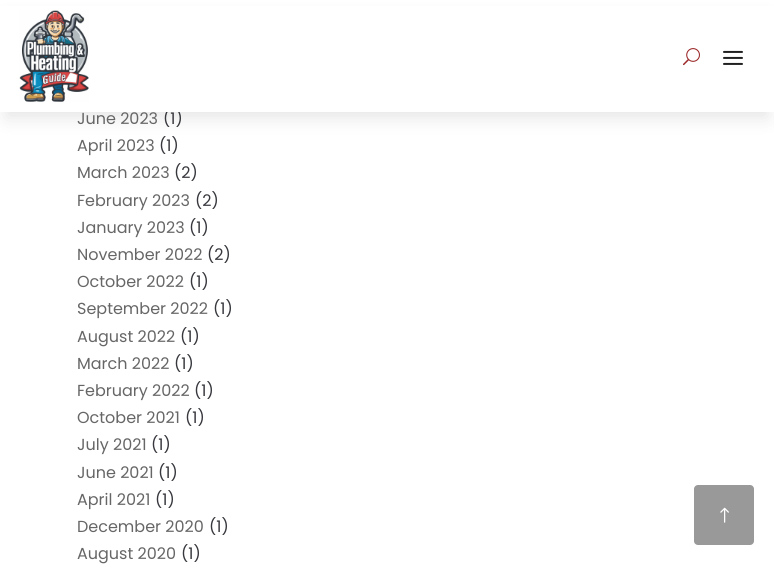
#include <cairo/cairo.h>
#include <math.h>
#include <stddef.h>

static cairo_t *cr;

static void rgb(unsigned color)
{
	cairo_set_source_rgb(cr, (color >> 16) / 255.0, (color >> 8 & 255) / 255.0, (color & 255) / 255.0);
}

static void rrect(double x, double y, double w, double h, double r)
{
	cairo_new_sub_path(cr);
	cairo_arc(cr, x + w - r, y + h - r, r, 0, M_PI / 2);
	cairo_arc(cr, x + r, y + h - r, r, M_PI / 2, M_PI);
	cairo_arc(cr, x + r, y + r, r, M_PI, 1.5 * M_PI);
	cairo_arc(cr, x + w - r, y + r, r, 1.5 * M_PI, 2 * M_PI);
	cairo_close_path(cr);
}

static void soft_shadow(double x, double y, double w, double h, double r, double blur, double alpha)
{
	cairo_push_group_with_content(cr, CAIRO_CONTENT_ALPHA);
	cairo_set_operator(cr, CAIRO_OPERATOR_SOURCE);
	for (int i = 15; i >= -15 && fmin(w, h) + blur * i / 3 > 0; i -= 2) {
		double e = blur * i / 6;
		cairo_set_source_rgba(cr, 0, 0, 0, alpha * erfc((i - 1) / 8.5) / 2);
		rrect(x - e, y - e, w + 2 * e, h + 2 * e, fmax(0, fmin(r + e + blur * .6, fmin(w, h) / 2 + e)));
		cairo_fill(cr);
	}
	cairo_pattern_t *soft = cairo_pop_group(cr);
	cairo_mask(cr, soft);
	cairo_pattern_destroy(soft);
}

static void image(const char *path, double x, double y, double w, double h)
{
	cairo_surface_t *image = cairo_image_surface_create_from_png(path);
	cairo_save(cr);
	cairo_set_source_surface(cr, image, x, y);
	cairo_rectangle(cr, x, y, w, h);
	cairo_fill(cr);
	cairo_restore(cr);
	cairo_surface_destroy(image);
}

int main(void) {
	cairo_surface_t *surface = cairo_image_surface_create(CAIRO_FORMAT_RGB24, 774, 565);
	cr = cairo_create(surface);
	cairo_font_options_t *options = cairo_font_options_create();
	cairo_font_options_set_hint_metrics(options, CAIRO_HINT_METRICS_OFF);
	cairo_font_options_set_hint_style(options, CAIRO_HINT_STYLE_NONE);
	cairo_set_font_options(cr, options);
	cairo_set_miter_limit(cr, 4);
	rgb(0xffffff);
	cairo_paint(cr);
	rgb(0x000000);
	soft_shadow(6, 18, 762, 100, 0, 9, 0.1);
	rgb(0x999999);
	rrect(694, 485, 60, 60, 4);
	cairo_fill(cr);
	image("img/4.png", 720, 507, 9, 16);
	cairo_select_font_face(cr, "Poppins", CAIRO_FONT_SLANT_NORMAL, CAIRO_FONT_WEIGHT_NORMAL);
	cairo_set_font_size(cr, 16);
	rgb(0x666666);
	cairo_move_to(cr, 77, 124);
	cairo_show_text(cr, "June 2023");
	rgb(0x37383d);
	cairo_move_to(cr, 163, 124);
	cairo_show_text(cr, "(1)");
	rgb(0xffffff);
	cairo_rectangle(cr, 0, 6, 774, 106);
	cairo_fill(cr);
	image("img/3.png", 723, 50, 20, 15);
	image("img/1.png", 19, 10, 70, 92);
	image("img/2.png", 683, 48, 17, 18);
	rgb(0x666666);
	cairo_move_to(cr, 77, 151);
	cairo_show_text(cr, "April 2023");
	rgb(0x37383d);
	cairo_move_to(cr, 159, 151);
	cairo_show_text(cr, "(1)");
	rgb(0x666666);
	cairo_move_to(cr, 77, 178);
	cairo_show_text(cr, "March 2023");
	rgb(0x37383d);
	cairo_move_to(cr, 174, 178);
	cairo_show_text(cr, "(2)");
	rgb(0x666666);
	cairo_move_to(cr, 77, 206);
	cairo_show_text(cr, "February 2023");
	rgb(0x37383d);
	cairo_move_to(cr, 195, 206);
	cairo_show_text(cr, "(2)");
	rgb(0x666666);
	cairo_move_to(cr, 77, 233);
	cairo_show_text(cr, "January 2023");
	rgb(0x37383d);
	cairo_move_to(cr, 189, 233);
	cairo_show_text(cr, "(1)");
	rgb(0x666666);
	cairo_move_to(cr, 77, 260);
	cairo_show_text(cr, "November 2022");
	rgb(0x37383d);
	cairo_move_to(cr, 207, 260);
	cairo_show_text(cr, "(2)");
	rgb(0x666666);
	cairo_move_to(cr, 77, 287);
	cairo_show_text(cr, "October 2022");
	rgb(0x37383d);
	cairo_move_to(cr, 189, 287);
	cairo_show_text(cr, "(1)");
	rgb(0x666666);
	cairo_move_to(cr, 77, 314);
	cairo_show_text(cr, "September 2022");
	rgb(0x37383d);
	cairo_move_to(cr, 213, 314);
	cairo_show_text(cr, "(1)");
	rgb(0x666666);
	cairo_move_to(cr, 77, 342);
	cairo_show_text(cr, "August 2022");
	rgb(0x37383d);
	cairo_move_to(cr, 180, 342);
	cairo_show_text(cr, "(1)");
	rgb(0x666666);
	cairo_move_to(cr, 77, 369);
	cairo_show_text(cr, "March 2022");
	rgb(0x37383d);
	cairo_move_to(cr, 174, 369);
	cairo_show_text(cr, "(1)");
	rgb(0x666666);
	cairo_move_to(cr, 77, 396);
	cairo_show_text(cr, "February 2022");
	rgb(0x37383d);
	cairo_move_to(cr, 194, 396);
	cairo_show_text(cr, "(1)");
	rgb(0x666666);
	cairo_move_to(cr, 77, 423);
	cairo_show_text(cr, "October 2021");
	rgb(0x37383d);
	cairo_move_to(cr, 185, 423);
	cairo_show_text(cr, "(1)");
	rgb(0x666666);
	cairo_move_to(cr, 77, 450);
	cairo_show_text(cr, "July 2021");
	rgb(0x37383d);
	cairo_move_to(cr, 151, 450);
	cairo_show_text(cr, "(1)");
	rgb(0x666666);
	cairo_move_to(cr, 77, 478);
	cairo_show_text(cr, "June 2021");
	rgb(0x37383d);
	cairo_move_to(cr, 158, 478);
	cairo_show_text(cr, "(1)");
	rgb(0x666666);
	cairo_move_to(cr, 77, 505);
	cairo_show_text(cr, "April 2021");
	rgb(0x37383d);
	cairo_move_to(cr, 155, 505);
	cairo_show_text(cr, "(1)");
	rgb(0x666666);
	cairo_move_to(cr, 77, 532);
	cairo_show_text(cr, "December 2020");
	rgb(0x37383d);
	cairo_move_to(cr, 209, 532);
	cairo_show_text(cr, "(1)");
	rgb(0x666666);
	cairo_move_to(cr, 77, 559);
	cairo_show_text(cr, "August 2020");
	rgb(0x37383d);
	cairo_move_to(cr, 181, 559);
	cairo_show_text(cr, "(1)");
	cairo_surface_write_to_png(surface, "page.png");
	cairo_font_options_destroy(options);
	cairo_destroy(cr);
	cairo_surface_destroy(surface);
	return 0;
}
